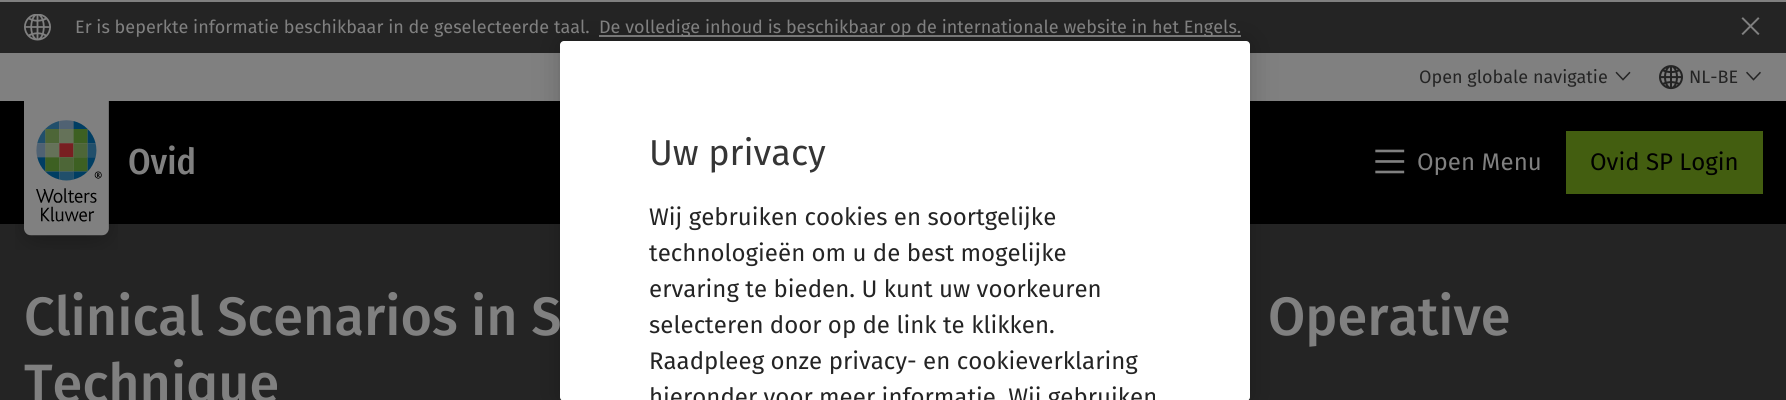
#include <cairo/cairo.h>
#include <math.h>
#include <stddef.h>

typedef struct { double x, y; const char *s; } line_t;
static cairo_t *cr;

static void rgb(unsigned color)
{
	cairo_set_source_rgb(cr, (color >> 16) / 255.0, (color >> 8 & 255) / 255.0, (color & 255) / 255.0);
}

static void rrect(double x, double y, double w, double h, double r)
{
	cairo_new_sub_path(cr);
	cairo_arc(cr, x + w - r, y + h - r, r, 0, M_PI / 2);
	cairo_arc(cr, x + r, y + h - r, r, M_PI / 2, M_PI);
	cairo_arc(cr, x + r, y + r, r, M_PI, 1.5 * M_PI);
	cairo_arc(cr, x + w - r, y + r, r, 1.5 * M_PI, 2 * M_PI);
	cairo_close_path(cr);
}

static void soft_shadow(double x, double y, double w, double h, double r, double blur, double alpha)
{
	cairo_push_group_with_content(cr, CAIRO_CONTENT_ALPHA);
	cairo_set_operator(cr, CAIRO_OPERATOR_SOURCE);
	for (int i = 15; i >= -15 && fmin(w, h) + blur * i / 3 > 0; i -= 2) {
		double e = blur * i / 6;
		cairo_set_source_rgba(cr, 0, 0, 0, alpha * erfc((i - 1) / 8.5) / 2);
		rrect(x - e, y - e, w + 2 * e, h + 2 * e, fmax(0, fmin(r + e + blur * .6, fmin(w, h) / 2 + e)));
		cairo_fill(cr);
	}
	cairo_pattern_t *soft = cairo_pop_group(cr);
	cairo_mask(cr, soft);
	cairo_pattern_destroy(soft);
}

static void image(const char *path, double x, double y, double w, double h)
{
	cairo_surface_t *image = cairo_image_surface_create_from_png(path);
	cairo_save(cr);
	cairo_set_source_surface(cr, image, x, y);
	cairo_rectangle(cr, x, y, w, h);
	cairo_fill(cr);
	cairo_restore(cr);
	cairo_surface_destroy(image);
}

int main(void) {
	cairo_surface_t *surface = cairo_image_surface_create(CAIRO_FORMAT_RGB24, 1786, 400);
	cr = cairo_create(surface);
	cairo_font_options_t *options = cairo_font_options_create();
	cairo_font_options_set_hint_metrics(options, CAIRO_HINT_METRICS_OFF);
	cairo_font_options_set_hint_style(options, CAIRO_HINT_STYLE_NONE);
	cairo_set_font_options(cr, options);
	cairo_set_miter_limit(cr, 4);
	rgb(0x808080);
	cairo_paint(cr);
	rgb(0x242424);
	cairo_rectangle(cr, 0, 2, 1786, 51);
	cairo_fill(cr);
	image("img/1.png", 24, 14, 27, 27);
	rgb(0x808080);
	cairo_rectangle(cr, 599, 35, 642, 2);
	cairo_fill(cr);
	image("img/2.png", 1741, 17, 19, 18);
	image("img/3.png", 1615, 71, 16, 10);
	image("img/4.png", 1659, 65, 24, 25);
	image("img/5.png", 1746, 71, 15, 10);
	rgb(0x000000);
	cairo_rectangle(cr, 0, 101, 1786, 123);
	cairo_fill(cr);
	rgb(0x242424);
	cairo_rectangle(cr, 0, 224, 1786, 176);
	cairo_fill(cr);
	image("img/6.png", 15, 101, 103, 149);
	image("img/7.png", 1375, 149, 30, 25);
	rgb(0x435e10);
	cairo_rectangle(cr, 1566, 131, 197, 63);
	cairo_fill(cr);
	rgb(0x000000);
	soft_shadow(560, 41, 690, 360, 4, 13.5, 0.2);
	rgb(0xffffff);
	rrect(560, 41, 690, 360, 4);
	cairo_fill(cr);
	cairo_select_font_face(cr, "Fira Sans", CAIRO_FONT_SLANT_NORMAL, CAIRO_FONT_WEIGHT_NORMAL);
	cairo_set_font_size(cr, 18);
	rgb(0x808080);
	cairo_move_to(cr, 75, 33);
	cairo_show_text(cr, "Er is beperkte informatie beschikbaar in de geselecteerde taal.");
	cairo_move_to(cr, 599, 33);
	cairo_show_text(cr, "De volledige inhoud is beschikbaar op de internationale website in het Engels.");
	rgb(0x242424);
	cairo_move_to(cr, 1419, 83);
	cairo_show_text(cr, "Open globale navigatie");
	cairo_move_to(cr, 1689, 83);
	cairo_show_text(cr, "NL-BE");
	cairo_select_font_face(cr, "Fira Sans Condensed Medium", CAIRO_FONT_SLANT_NORMAL, CAIRO_FONT_WEIGHT_NORMAL);
	cairo_set_font_size(cr, 36);
	rgb(0x808080);
	cairo_move_to(cr, 128, 174);
	cairo_show_text(cr, "Ovid");
	cairo_select_font_face(cr, "Fira Sans", CAIRO_FONT_SLANT_NORMAL, CAIRO_FONT_WEIGHT_NORMAL);
	cairo_set_font_size(cr, 24);
	cairo_move_to(cr, 1417, 170);
	cairo_show_text(cr, "Open Menu");
	rgb(0x000000);
	cairo_move_to(cr, 1590, 170);
	cairo_show_text(cr, "Ovid SP Login");
	cairo_select_font_face(cr, "Fira Sans Medium", CAIRO_FONT_SLANT_NORMAL, CAIRO_FONT_WEIGHT_NORMAL);
	cairo_set_font_size(cr, 54);
	rgb(0x808080);
	{
		static const line_t items[] = {
			{24, 335, "Clinical Scenarios in S"},
			{1268, 335, "Operative"},
			{24, 402, "Technique"},
		};
		for (size_t i = 0; i < sizeof items / sizeof *items; i++) {
			cairo_move_to(cr, items[i].x, items[i].y);
			cairo_show_text(cr, items[i].s);
		}
	}
	cairo_select_font_face(cr, "Fira Sans", CAIRO_FONT_SLANT_NORMAL, CAIRO_FONT_WEIGHT_NORMAL);
	cairo_set_font_size(cr, 36);
	rgb(0x353535);
	cairo_move_to(cr, 649, 165);
	cairo_show_text(cr, "Uw privacy");
	cairo_set_font_size(cr, 24);
	rgb(0x242424);
	{
		static const line_t items[] = {
			{649, 225, "Wij gebruiken cookies en soortgelijke"},
			{649, 261, "technologieën om u de best mogelijke"},
			{649, 297, "ervaring te bieden. U kunt uw voorkeuren"},
			{649, 333, "selecteren door op de link te klikken."},
			{649, 369, "Raadpleeg onze privacy- en cookieverklaring"},
			{649, 405, "hieronder voor meer informatie. Wij gebruiken"},
		};
		for (size_t i = 0; i < sizeof items / sizeof *items; i++) {
			cairo_move_to(cr, items[i].x, items[i].y);
			cairo_show_text(cr, items[i].s);
		}
	}
	cairo_surface_write_to_png(surface, "page.png");
	cairo_font_options_destroy(options);
	cairo_destroy(cr);
	cairo_surface_destroy(surface);
	return 0;
}
